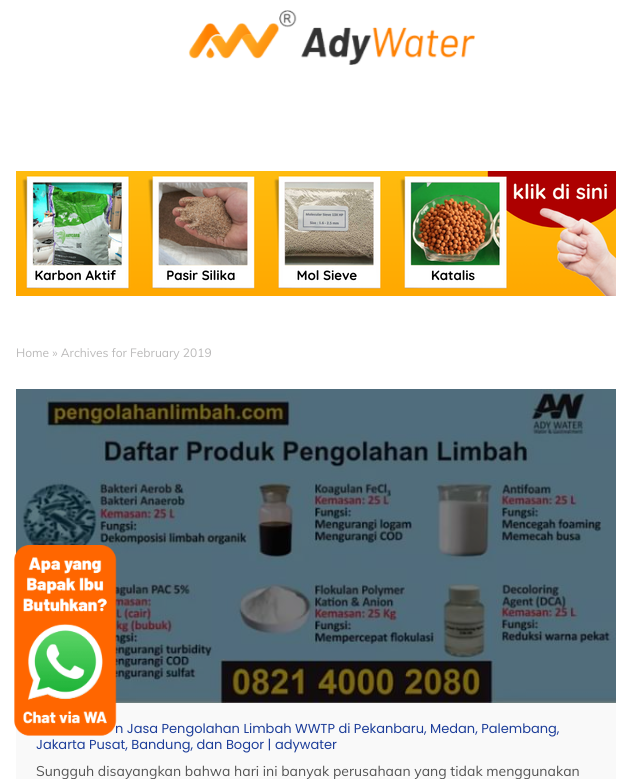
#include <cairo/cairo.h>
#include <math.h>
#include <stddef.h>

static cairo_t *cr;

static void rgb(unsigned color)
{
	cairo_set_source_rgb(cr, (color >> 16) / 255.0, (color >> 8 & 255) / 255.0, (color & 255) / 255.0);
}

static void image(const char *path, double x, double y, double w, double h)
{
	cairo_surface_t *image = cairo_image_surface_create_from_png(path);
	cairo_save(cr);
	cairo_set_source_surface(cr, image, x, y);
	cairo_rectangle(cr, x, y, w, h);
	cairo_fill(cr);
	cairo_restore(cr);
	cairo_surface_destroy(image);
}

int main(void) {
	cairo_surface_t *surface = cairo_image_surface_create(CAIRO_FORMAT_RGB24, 632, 779);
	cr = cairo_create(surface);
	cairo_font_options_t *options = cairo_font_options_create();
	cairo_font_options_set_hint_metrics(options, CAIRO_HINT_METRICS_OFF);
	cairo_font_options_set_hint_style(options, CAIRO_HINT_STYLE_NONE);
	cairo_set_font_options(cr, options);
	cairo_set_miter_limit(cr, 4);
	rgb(0xffffff);
	cairo_paint(cr);
	image("img/1.png", 188, 10, 287, 55);
	image("img/2.png", 16, 171, 600, 125);
	rgb(0xf9f9f9);
	cairo_rectangle(cr, 16, 703, 600, 76);
	cairo_fill(cr);
	image("img/3.png", 16, 389, 600, 314);
	cairo_select_font_face(cr, "Muli", CAIRO_FONT_SLANT_NORMAL, CAIRO_FONT_WEIGHT_NORMAL);
	cairo_set_font_size(cr, 12);
	rgb(0xbbbaba);
	cairo_move_to(cr, 16, 357);
	cairo_show_text(cr, "Home » Archives for February 2019");
	cairo_select_font_face(cr, "Poppins", CAIRO_FONT_SLANT_NORMAL, CAIRO_FONT_WEIGHT_NORMAL);
	cairo_set_font_size(cr, 13);
	rgb(0x1c3d99);
	cairo_move_to(cr, 115, 733);
	cairo_show_text(cr, "n Jasa Pengolahan Limbah WWTP di Pekanbaru, Medan, Palembang,");
	cairo_move_to(cr, 36, 749);
	cairo_show_text(cr, "Jakarta Pusat, Bandung, dan Bogor | adywater");
	cairo_select_font_face(cr, "Muli", CAIRO_FONT_SLANT_NORMAL, CAIRO_FONT_WEIGHT_NORMAL);
	cairo_set_font_size(cr, 14);
	rgb(0x555555);
	cairo_move_to(cr, 36, 776);
	cairo_show_text(cr, "Sungguh disayangkan bahwa hari ini banyak perusahaan yang tidak menggunakan");
	image("img/4.png", 14, 545, 103, 191);
	cairo_surface_write_to_png(surface, "page.png");
	cairo_font_options_destroy(options);
	cairo_destroy(cr);
	cairo_surface_destroy(surface);
	return 0;
}
